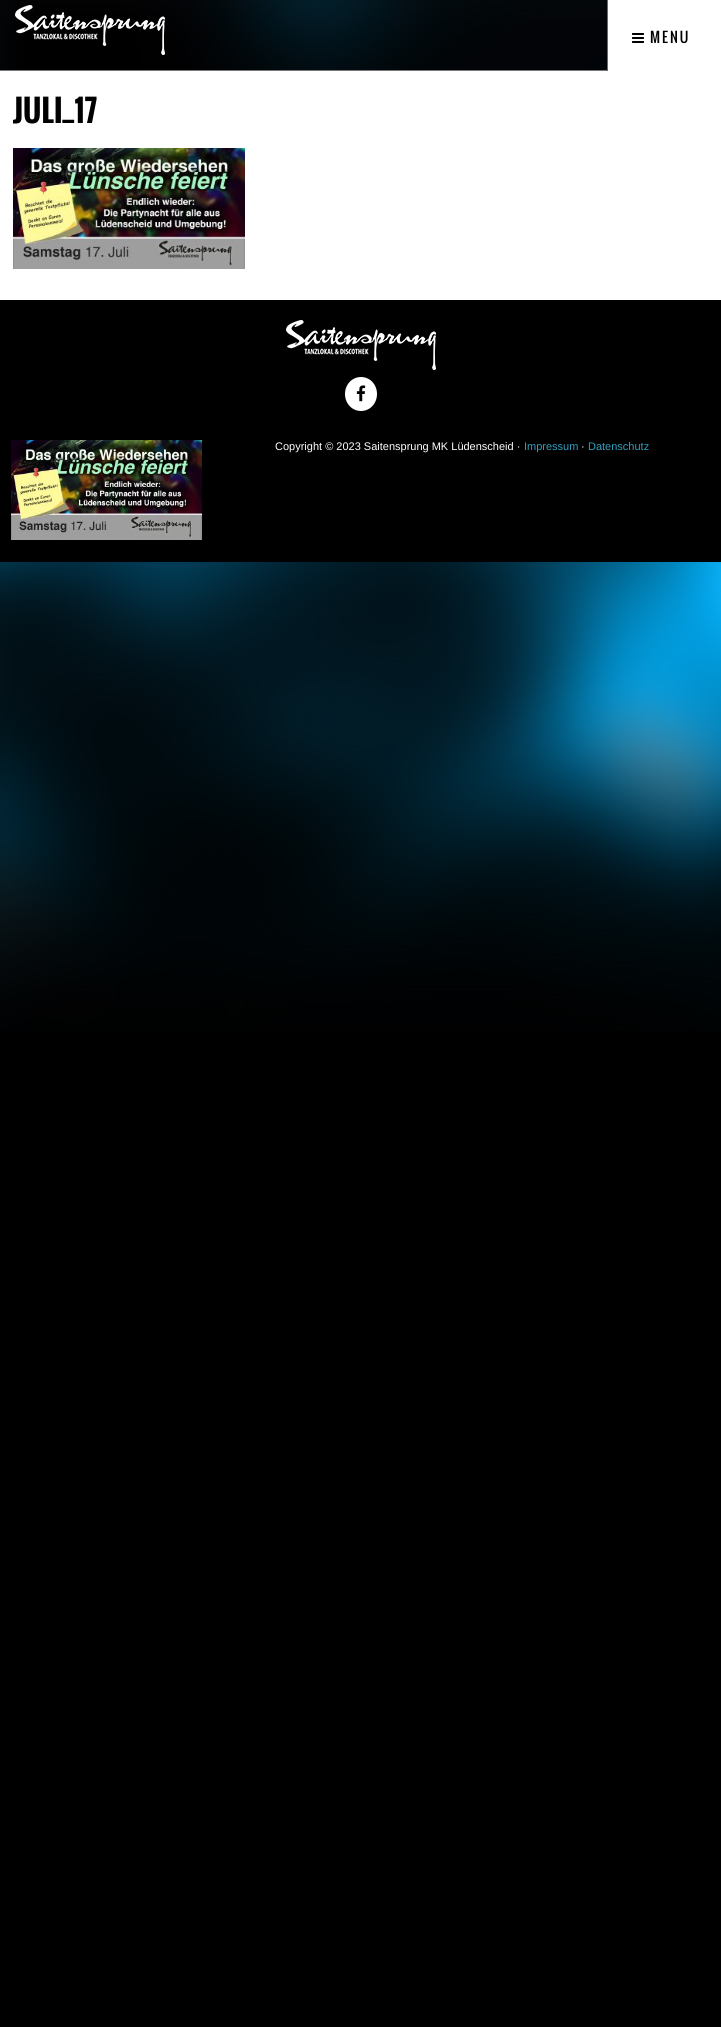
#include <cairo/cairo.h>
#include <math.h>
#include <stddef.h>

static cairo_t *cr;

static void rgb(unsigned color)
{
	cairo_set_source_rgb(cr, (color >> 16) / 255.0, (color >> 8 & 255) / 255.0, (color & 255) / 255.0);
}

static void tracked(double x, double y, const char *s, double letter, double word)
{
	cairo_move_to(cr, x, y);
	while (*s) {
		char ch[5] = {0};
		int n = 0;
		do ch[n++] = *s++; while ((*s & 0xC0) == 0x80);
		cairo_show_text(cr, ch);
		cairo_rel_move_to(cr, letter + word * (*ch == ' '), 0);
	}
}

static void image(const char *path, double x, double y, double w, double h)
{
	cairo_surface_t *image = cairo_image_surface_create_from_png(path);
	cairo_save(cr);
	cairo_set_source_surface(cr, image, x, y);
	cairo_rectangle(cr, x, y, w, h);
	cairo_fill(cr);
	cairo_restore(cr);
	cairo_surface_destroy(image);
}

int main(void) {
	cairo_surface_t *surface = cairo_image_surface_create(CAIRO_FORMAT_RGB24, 721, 2027);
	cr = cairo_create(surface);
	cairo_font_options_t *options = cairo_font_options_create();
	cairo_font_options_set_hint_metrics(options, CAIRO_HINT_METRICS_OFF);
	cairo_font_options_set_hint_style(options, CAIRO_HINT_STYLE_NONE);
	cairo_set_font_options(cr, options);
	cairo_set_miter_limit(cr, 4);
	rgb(0x000000);
	cairo_paint(cr);
	image("img/1.png", 0, 0, 721, 1033);
	rgb(0x777777);
	cairo_rectangle(cr, 0, 70, 607, 1);
	cairo_fill(cr);
	image("img/2.png", 15, 5, 150, 50);
	rgb(0xffffff);
	cairo_rectangle(cr, 608, 0, 113, 71);
	cairo_fill(cr);
	rgb(0x696969);
	cairo_rectangle(cr, 607, 0, 1, 71);
	cairo_fill(cr);
	image("img/3.png", 632, 33, 12, 10);
	rgb(0xffffff);
	cairo_rectangle(cr, 0, 71, 721, 229);
	cairo_fill(cr);
	image("img/4.png", 13, 148, 232, 121);
	rgb(0x000000);
	cairo_rectangle(cr, 0, 300, 721, 262);
	cairo_fill(cr);
	image("img/5.png", 286, 320, 150, 50);
	rgb(0xffffff);
	cairo_new_path(cr);
	cairo_move_to(cr, 361, 377);
	cairo_curve_to(cr, 370, 377, 377, 384.5, 377, 394);
	cairo_curve_to(cr, 377, 403.5, 370, 411, 361, 411);
	cairo_curve_to(cr, 352, 411, 345, 403.5, 345, 394);
	cairo_curve_to(cr, 345, 384.5, 352, 377, 361, 377);
	cairo_close_path(cr);
	cairo_fill(cr);
	image("img/6.png", 356, 385, 10, 17);
	image("img/7.png", 11, 440, 191, 100);
	cairo_select_font_face(cr, "Oswald", CAIRO_FONT_SLANT_NORMAL, CAIRO_FONT_WEIGHT_NORMAL);
	cairo_set_font_size(cr, 14);
	rgb(0x000000);
	tracked(650, 43, "MENU", 2, 0);
	cairo_select_font_face(cr, "Oswald", CAIRO_FONT_SLANT_NORMAL, CAIRO_FONT_WEIGHT_BOLD);
	cairo_set_font_size(cr, 30);
	cairo_move_to(cr, 13, 123);
	cairo_show_text(cr, "JULI_17");
	cairo_select_font_face(cr, "Liberation Sans", CAIRO_FONT_SLANT_NORMAL, CAIRO_FONT_WEIGHT_NORMAL);
	cairo_set_font_size(cr, 11);
	rgb(0xffffff);
	cairo_move_to(cr, 275, 450);
	cairo_show_text(cr, "Copyright © 2023 Saitensprung MK Lüdenscheid ·");
	rgb(0x319fbe);
	cairo_move_to(cr, 524, 450);
	cairo_show_text(cr, "Impressum");
	rgb(0xffffff);
	cairo_move_to(cr, 581, 450);
	cairo_show_text(cr, "·");
	rgb(0x319fbe);
	cairo_move_to(cr, 588, 450);
	cairo_show_text(cr, "Datenschutz");
	cairo_surface_write_to_png(surface, "page.png");
	cairo_font_options_destroy(options);
	cairo_destroy(cr);
	cairo_surface_destroy(surface);
	return 0;
}
